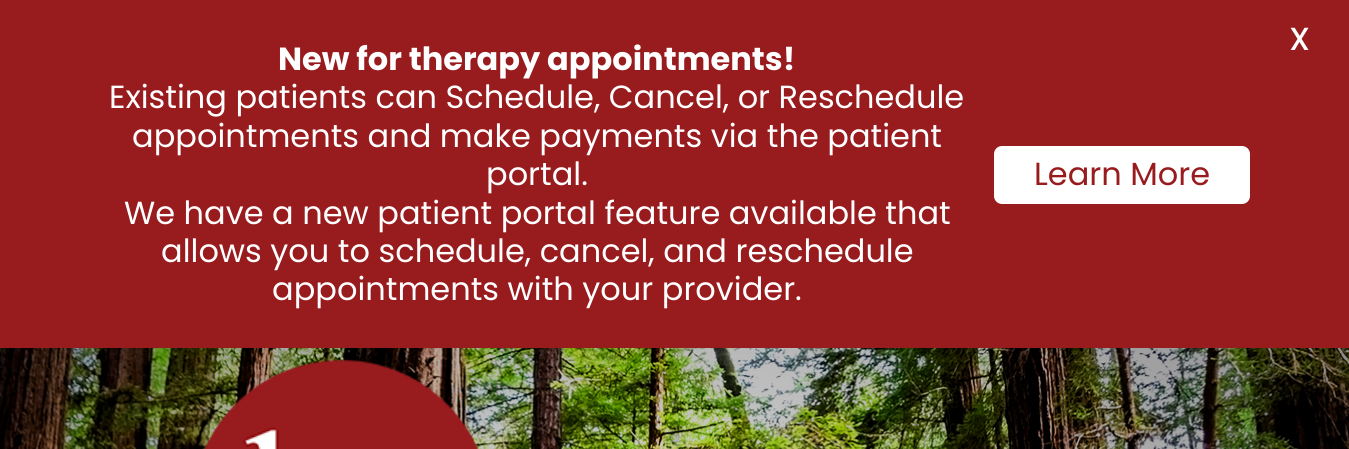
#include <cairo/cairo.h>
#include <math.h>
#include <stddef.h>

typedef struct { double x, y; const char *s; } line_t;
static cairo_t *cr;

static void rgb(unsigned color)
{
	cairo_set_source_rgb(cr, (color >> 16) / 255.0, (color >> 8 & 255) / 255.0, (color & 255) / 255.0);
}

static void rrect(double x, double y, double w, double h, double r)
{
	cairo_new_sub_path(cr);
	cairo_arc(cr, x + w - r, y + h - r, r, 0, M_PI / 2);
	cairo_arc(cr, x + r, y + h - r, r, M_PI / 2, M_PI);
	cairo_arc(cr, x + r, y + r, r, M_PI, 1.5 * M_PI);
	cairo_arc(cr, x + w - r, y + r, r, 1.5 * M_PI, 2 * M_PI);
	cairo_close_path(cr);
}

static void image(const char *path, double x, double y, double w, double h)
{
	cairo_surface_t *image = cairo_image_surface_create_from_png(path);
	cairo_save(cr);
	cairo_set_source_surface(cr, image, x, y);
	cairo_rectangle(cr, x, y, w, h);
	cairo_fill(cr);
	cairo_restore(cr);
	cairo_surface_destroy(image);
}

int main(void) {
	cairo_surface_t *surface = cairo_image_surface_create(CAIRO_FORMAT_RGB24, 1349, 449);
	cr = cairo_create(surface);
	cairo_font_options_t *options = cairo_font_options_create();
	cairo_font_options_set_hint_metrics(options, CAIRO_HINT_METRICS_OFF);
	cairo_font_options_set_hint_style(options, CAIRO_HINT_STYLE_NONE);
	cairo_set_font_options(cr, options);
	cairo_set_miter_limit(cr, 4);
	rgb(0xffffff);
	cairo_paint(cr);
	rgb(0x981b1e);
	cairo_rectangle(cr, 0, 0, 1349, 348);
	cairo_fill(cr);
	rgb(0xffffff);
	rrect(994, 146, 256, 58, 8);
	cairo_fill(cr);
	image("img/1.png", 0, 348, 1349, 101);
	image("img/2.png", 204, 359, 275, 90);
	cairo_select_font_face(cr, "Poppins Medium", CAIRO_FONT_SLANT_NORMAL, CAIRO_FONT_WEIGHT_NORMAL);
	cairo_set_font_size(cr, 32);
	cairo_move_to(cr, 1289, 50);
	cairo_show_text(cr, "X");
	cairo_select_font_face(cr, "Poppins", CAIRO_FONT_SLANT_NORMAL, CAIRO_FONT_WEIGHT_BOLD);
	cairo_move_to(cr, 278, 70);
	cairo_show_text(cr, "New for therapy appointments!");
	cairo_select_font_face(cr, "Poppins", CAIRO_FONT_SLANT_NORMAL, CAIRO_FONT_WEIGHT_NORMAL);
	{
		static const line_t items[] = {
			{109, 108, "Existing patients can Schedule, Cancel, or Reschedule"},
			{132, 147, "appointments and make payments via the patient"},
			{486, 185, "portal."},
			{124, 224, "We have a new patient portal feature available that"},
			{161, 262, "allows you to schedule, cancel, and reschedule"},
			{272, 300, "appointments with your provider."},
		};
		for (size_t i = 0; i < sizeof items / sizeof *items; i++) {
			cairo_move_to(cr, items[i].x, items[i].y);
			cairo_show_text(cr, items[i].s);
		}
	}
	rgb(0x981b1e);
	cairo_move_to(cr, 1034, 185);
	cairo_show_text(cr, "Learn More");
	cairo_surface_write_to_png(surface, "page.png");
	cairo_font_options_destroy(options);
	cairo_destroy(cr);
	cairo_surface_destroy(surface);
	return 0;
}
